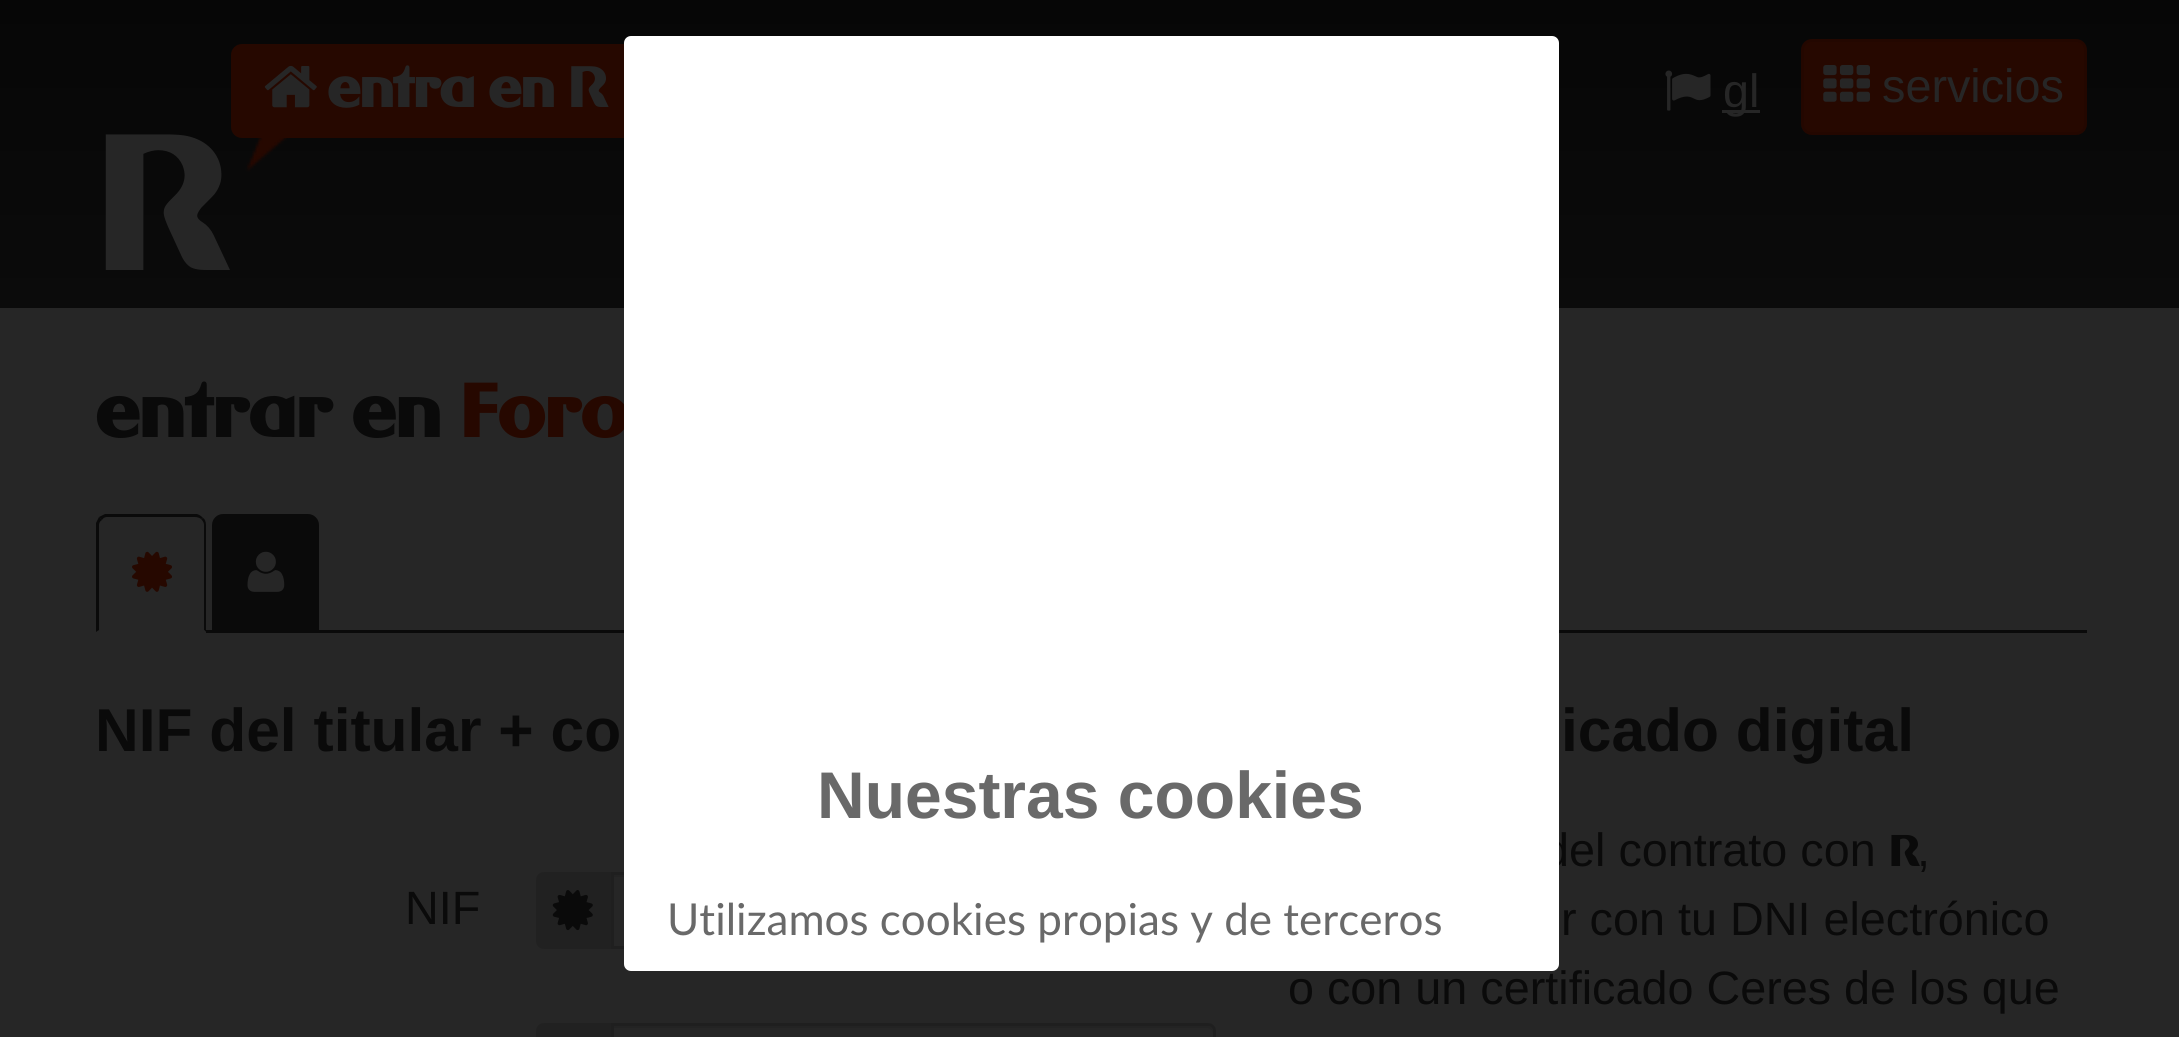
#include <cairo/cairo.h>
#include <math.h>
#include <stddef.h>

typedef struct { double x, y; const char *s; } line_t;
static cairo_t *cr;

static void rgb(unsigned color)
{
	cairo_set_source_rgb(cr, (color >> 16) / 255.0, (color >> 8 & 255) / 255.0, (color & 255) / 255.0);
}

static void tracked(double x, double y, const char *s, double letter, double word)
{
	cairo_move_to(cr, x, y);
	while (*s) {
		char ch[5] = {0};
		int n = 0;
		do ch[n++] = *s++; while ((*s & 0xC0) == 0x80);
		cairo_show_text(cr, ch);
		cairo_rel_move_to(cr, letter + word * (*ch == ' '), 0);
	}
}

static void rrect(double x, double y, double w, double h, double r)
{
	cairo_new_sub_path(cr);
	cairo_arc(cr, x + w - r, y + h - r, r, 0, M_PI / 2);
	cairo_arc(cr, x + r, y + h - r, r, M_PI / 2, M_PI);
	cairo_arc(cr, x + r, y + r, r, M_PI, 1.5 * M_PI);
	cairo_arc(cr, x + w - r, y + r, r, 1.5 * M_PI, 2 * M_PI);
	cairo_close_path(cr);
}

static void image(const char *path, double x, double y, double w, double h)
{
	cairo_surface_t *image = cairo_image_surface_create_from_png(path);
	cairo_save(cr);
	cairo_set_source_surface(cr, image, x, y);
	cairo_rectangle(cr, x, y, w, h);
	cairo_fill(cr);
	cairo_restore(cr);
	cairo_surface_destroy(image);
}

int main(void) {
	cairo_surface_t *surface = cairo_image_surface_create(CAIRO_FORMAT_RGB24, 2179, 1037);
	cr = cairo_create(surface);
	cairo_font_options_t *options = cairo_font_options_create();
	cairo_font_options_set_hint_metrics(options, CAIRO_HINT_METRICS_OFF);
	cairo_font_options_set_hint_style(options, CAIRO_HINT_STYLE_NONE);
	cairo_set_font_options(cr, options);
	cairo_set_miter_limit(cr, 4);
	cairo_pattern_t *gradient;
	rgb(0x262626);
	cairo_paint(cr);
	gradient = cairo_pattern_create_linear(1090, 0, 1090, 308);
	cairo_pattern_add_color_stop_rgba(gradient, 0, 0.024, 0.024, 0.024, 1);
	cairo_pattern_add_color_stop_rgba(gradient, 1, 0.043, 0.043, 0.043, 1);
	cairo_set_source(cr, gradient);
	cairo_pattern_destroy(gradient);
	cairo_rectangle(cr, 0, 0, 2179, 308);
	cairo_fill(cr);
	rgb(0x260800);
	rrect(231, 44, 410, 94, 11);
	cairo_fill(cr);
	image("img/1.png", 264, 65, 53, 43);
	image("img/2.png", 245, 138, 44, 34);
	image("img/3.png", 1665, 70, 46, 41);
	rgb(0x262626);
	cairo_rectangle(cr, 1722, 110, 38, 3);
	cairo_fill(cr);
	rgb(0x260800);
	rrect(1802.5, 40.5, 283, 93, 9.5);
	cairo_fill_preserve(cr);
	rgb(0x230700);
	cairo_set_line_width(cr, 3);
	cairo_stroke(cr);
	image("img/4.png", 1823, 65, 47, 37);
	rgb(0x0a0a0a);
	cairo_rectangle(cr, 206, 630, 1881, 3);
	cairo_fill(cr);
	cairo_new_path(cr);
	cairo_move_to(cr, 107, 517);
	cairo_curve_to(cr, 105, 517, 103, 518, 102, 520);
	cairo_line_to(cr, 99, 517);
	cairo_curve_to(cr, 101, 516, 103, 515, 105, 514);
	cairo_line_to(cr, 197, 514);
	cairo_curve_to(cr, 200, 515, 201, 516, 203, 518);
	cairo_line_to(cr, 201, 519);
	cairo_curve_to(cr, 200, 518, 197, 517, 195, 517);
	cairo_close_path(cr);
	cairo_fill(cr);
	cairo_new_path(cr);
	cairo_move_to(cr, 203, 518);
	cairo_curve_to(cr, 205, 519, 206, 522, 206, 525);
	cairo_line_to(cr, 206, 632);
	cairo_line_to(cr, 204, 630);
	cairo_line_to(cr, 204, 525);
	cairo_curve_to(cr, 204, 523, 203, 521, 201, 519);
	cairo_close_path(cr);
	cairo_fill(cr);
	rgb(0x262626);
	cairo_new_path(cr);
	cairo_move_to(cr, 206, 632);
	cairo_line_to(cr, 97, 632);
	cairo_line_to(cr, 99, 630);
	cairo_line_to(cr, 204, 630);
	cairo_close_path(cr);
	cairo_fill(cr);
	rgb(0x0a0a0a);
	cairo_new_path(cr);
	cairo_move_to(cr, 96, 523);
	cairo_curve_to(cr, 97, 521, 98, 519, 99, 517);
	cairo_line_to(cr, 102, 520);
	cairo_curve_to(cr, 100, 521, 99, 523, 99, 525);
	cairo_line_to(cr, 99, 630);
	cairo_line_to(cr, 96, 632);
	cairo_close_path(cr);
	cairo_fill(cr);
	image("img/5.png", 132, 551, 40, 41);
	cairo_new_path(cr);
	cairo_move_to(cr, 223, 514);
	cairo_line_to(cr, 308, 514);
	cairo_curve_to(cr, 314, 514, 319, 519, 319, 525);
	cairo_line_to(cr, 319, 633);
	cairo_line_to(cr, 212, 633);
	cairo_line_to(cr, 212, 525);
	cairo_curve_to(cr, 212, 519, 217, 514, 223, 514);
	cairo_close_path(cr);
	cairo_fill(cr);
	image("img/6.png", 247, 551, 38, 41);
	rgb(0x212121);
	cairo_new_path(cr);
	cairo_move_to(cr, 544, 872);
	cairo_line_to(cr, 613, 872);
	cairo_line_to(cr, 613, 949);
	cairo_line_to(cr, 544, 949);
	cairo_curve_to(cr, 539.5, 949, 536, 945.5, 536, 941);
	cairo_line_to(cr, 536, 880);
	cairo_curve_to(cr, 536, 875.5, 539.5, 872, 544, 872);
	cairo_close_path(cr);
	cairo_fill(cr);
	image("img/7.png", 552, 890, 41, 41);
	rgb(0x232323);
	cairo_new_path(cr);
	cairo_move_to(cr, 613, 877);
	cairo_line_to(cr, 1207, 877);
	cairo_curve_to(cr, 1210, 877, 1213, 880, 1213, 883);
	cairo_curve_to(cr, 1213, 879, 1212, 875, 1207, 875);
	cairo_line_to(cr, 613, 875);
	cairo_close_path(cr);
	cairo_fill(cr);
	cairo_rectangle(cr, 612.5, 873.5, 602, 74);
	rgb(0x1f1f1f);
	cairo_stroke(cr);
	rgb(0x212121);
	cairo_new_path(cr);
	cairo_move_to(cr, 544, 1023);
	cairo_line_to(cr, 613, 1023);
	cairo_line_to(cr, 613, 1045);
	cairo_line_to(cr, 544, 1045);
	cairo_curve_to(cr, 539.5, 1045, 536, 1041.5, 536, 1037);
	cairo_line_to(cr, 536, 1031);
	cairo_curve_to(cr, 536, 1026.5, 539.5, 1023, 544, 1023);
	cairo_close_path(cr);
	cairo_fill(cr);
	rgb(0x262626);
	cairo_new_path(cr);
	cairo_move_to(cr, 611, 1023);
	cairo_line_to(cr, 1208, 1023);
	cairo_curve_to(cr, 1212.5, 1023, 1216, 1026.5, 1216, 1031);
	cairo_line_to(cr, 1216, 1037);
	cairo_curve_to(cr, 1216, 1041.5, 1212.5, 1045, 1208, 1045);
	cairo_line_to(cr, 611, 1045);
	cairo_close_path(cr);
	cairo_fill(cr);
	rgb(0x232323);
	cairo_new_path(cr);
	cairo_move_to(cr, 613, 1028);
	cairo_line_to(cr, 1207, 1028);
	cairo_curve_to(cr, 1210, 1028, 1213, 1031, 1213, 1034);
	cairo_curve_to(cr, 1213, 1030, 1212, 1026, 1207, 1026);
	cairo_line_to(cr, 613, 1026);
	cairo_close_path(cr);
	cairo_fill(cr);
	cairo_new_path(cr);
	cairo_move_to(cr, 612.5, 1024.5);
	cairo_line_to(cr, 1208, 1024.5);
	cairo_curve_to(cr, 1211.5, 1024.5, 1214.5, 1027.5, 1214.5, 1031);
	cairo_line_to(cr, 1214.5, 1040);
	cairo_curve_to(cr, 1214.5, 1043.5, 1211.5, 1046.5, 1208, 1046.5);
	cairo_line_to(cr, 612.5, 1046.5);
	cairo_close_path(cr);
	rgb(0x1f1f1f);
	cairo_stroke(cr);
	cairo_select_font_face(cr, "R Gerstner", CAIRO_FONT_SLANT_NORMAL, CAIRO_FONT_WEIGHT_BOLD);
	cairo_set_font_size(cr, 57.75);
	rgb(0x262626);
	tracked(327, 107, "entra en R", -2.75, 0);
	cairo_set_font_size(cr, 192);
	tracked(95, 270, "R", -2.75, 0);
	cairo_select_font_face(cr, "Liberation Sans", CAIRO_FONT_SLANT_NORMAL, CAIRO_FONT_WEIGHT_NORMAL);
	cairo_set_font_size(cr, 46.75);
	cairo_move_to(cr, 1723, 107);
	cairo_show_text(cr, "gl");
	cairo_move_to(cr, 1882, 102);
	cairo_show_text(cr, "servicios");
	cairo_select_font_face(cr, "R Gerstner", CAIRO_FONT_SLANT_NORMAL, CAIRO_FONT_WEIGHT_BOLD);
	cairo_set_font_size(cr, 77);
	rgb(0x0a0a0a);
	tracked(95, 437, "entrar en", -2.75, 0);
	rgb(0x260800);
	tracked(460, 437, "Foro", -2.75, 0);
	cairo_select_font_face(cr, "Liberation Sans", CAIRO_FONT_SLANT_NORMAL, CAIRO_FONT_WEIGHT_BOLD);
	cairo_set_font_size(cr, 60.5);
	rgb(0x0a0a0a);
	cairo_move_to(cr, 95, 751);
	cairo_show_text(cr, "NIF del titular + co");
	cairo_select_font_face(cr, "Liberation Sans", CAIRO_FONT_SLANT_NORMAL, CAIRO_FONT_WEIGHT_NORMAL);
	cairo_set_font_size(cr, 46.75);
	cairo_move_to(cr, 405, 924);
	cairo_show_text(cr, "NIF");
	cairo_select_font_face(cr, "Liberation Sans", CAIRO_FONT_SLANT_NORMAL, CAIRO_FONT_WEIGHT_BOLD);
	cairo_set_font_size(cr, 60.5);
	cairo_move_to(cr, 1561, 751);
	cairo_show_text(cr, "icado digital");
	cairo_select_font_face(cr, "Liberation Sans", CAIRO_FONT_SLANT_NORMAL, CAIRO_FONT_WEIGHT_NORMAL);
	cairo_set_font_size(cr, 46.75);
	cairo_move_to(cr, 1543, 866);
	cairo_show_text(cr, "del contrato con");
	cairo_select_font_face(cr, "R Gerstner", CAIRO_FONT_SLANT_NORMAL, CAIRO_FONT_WEIGHT_BOLD);
	cairo_set_font_size(cr, 44);
	tracked(1889, 866, "R", -2.75, 0);
	cairo_select_font_face(cr, "Liberation Sans", CAIRO_FONT_SLANT_NORMAL, CAIRO_FONT_WEIGHT_NORMAL);
	cairo_set_font_size(cr, 46.75);
	{
		static const line_t items[] = {
			{1917, 866, ","},
			{1561, 935, "r con tu DNI electrónico"},
			{1288, 1004, "o con un certificado Ceres de los que"},
		};
		for (size_t i = 0; i < sizeof items / sizeof *items; i++) {
			cairo_move_to(cr, items[i].x, items[i].y);
			cairo_show_text(cr, items[i].s);
		}
	}
	rgb(0xffffff);
	rrect(624, 36, 935, 935, 7);
	cairo_fill(cr);
	cairo_select_font_face(cr, "Liberation Sans", CAIRO_FONT_SLANT_NORMAL, CAIRO_FONT_WEIGHT_BOLD);
	cairo_set_font_size(cr, 66);
	rgb(0x696969);
	cairo_move_to(cr, 817, 818);
	cairo_show_text(cr, "Nuestras cookies");
	cairo_select_font_face(cr, "Lato", CAIRO_FONT_SLANT_NORMAL, CAIRO_FONT_WEIGHT_NORMAL);
	cairo_set_font_size(cr, 44);
	cairo_move_to(cr, 667, 935);
	cairo_show_text(cr, "Utilizamos cookies propias y de terceros");
	cairo_surface_write_to_png(surface, "page.png");
	cairo_font_options_destroy(options);
	cairo_destroy(cr);
	cairo_surface_destroy(surface);
	return 0;
}
